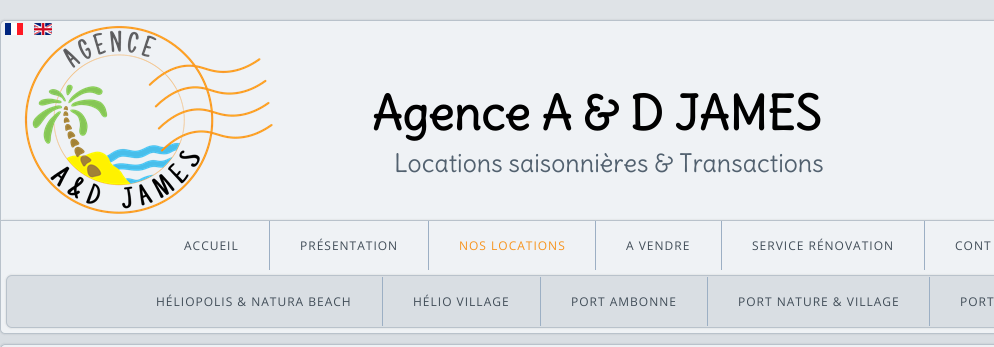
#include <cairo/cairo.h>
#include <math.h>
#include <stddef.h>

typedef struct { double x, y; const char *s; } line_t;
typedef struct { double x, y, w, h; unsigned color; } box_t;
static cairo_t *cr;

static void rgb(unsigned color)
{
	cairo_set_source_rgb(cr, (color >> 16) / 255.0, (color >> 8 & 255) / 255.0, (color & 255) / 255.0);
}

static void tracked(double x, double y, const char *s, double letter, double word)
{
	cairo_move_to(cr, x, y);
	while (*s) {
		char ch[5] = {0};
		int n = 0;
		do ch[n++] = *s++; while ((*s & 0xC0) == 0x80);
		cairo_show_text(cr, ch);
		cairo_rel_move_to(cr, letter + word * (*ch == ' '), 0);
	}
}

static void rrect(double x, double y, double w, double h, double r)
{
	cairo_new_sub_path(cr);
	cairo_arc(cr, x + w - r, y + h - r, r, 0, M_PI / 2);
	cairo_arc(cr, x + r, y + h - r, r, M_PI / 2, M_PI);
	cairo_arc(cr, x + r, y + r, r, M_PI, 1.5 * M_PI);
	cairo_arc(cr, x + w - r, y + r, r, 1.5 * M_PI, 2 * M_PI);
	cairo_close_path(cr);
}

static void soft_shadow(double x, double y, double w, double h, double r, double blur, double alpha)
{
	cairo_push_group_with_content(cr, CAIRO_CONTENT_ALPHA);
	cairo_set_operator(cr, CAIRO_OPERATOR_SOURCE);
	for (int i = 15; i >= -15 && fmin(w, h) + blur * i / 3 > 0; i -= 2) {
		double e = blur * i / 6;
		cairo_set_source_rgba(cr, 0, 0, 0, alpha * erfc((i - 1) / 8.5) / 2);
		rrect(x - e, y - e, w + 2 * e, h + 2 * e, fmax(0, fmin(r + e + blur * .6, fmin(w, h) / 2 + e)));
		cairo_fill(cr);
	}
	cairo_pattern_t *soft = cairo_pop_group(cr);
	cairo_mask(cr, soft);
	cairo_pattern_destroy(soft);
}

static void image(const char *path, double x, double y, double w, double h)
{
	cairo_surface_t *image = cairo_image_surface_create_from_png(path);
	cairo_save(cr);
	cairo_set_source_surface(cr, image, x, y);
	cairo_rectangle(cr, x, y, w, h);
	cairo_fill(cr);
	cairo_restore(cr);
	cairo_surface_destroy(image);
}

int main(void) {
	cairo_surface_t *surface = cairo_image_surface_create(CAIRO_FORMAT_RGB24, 994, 347);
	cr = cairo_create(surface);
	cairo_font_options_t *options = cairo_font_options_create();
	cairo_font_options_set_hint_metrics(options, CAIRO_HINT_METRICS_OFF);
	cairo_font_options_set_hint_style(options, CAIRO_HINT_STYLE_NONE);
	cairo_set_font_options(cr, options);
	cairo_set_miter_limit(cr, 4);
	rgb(0xd9dee3);
	cairo_paint(cr);
	rgb(0xdfe3e7);
	cairo_rectangle(cr, 0, 0, 994, 25);
	cairo_fill(cr);
	rgb(0x000000);
	soft_shadow(-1, 19, 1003, 202, 6, 0.5, 0.05);
	image("img/1.png", 0, 20, 994, 200);
	rgb(0xb9c2cb);
	cairo_set_fill_rule(cr, CAIRO_FILL_RULE_EVEN_ODD);
	cairo_new_path(cr);
	cairo_move_to(cr, 5, 20);
	cairo_line_to(cr, 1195, 20);
	cairo_curve_to(cr, 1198, 20, 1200, 22, 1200, 25);
	cairo_line_to(cr, 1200, 220);
	cairo_line_to(cr, 0, 220);
	cairo_line_to(cr, 0, 25);
	cairo_curve_to(cr, 0, 22, 2, 20, 5, 20);
	cairo_close_path(cr);
	cairo_move_to(cr, 5, 21);
	cairo_line_to(cr, 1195, 21);
	cairo_curve_to(cr, 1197, 21, 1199, 23, 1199, 25);
	cairo_line_to(cr, 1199, 220);
	cairo_line_to(cr, 1, 220);
	cairo_line_to(cr, 1, 25);
	cairo_curve_to(cr, 1, 23, 3, 21, 5, 21);
	cairo_close_path(cr);
	cairo_fill(cr);
	image("img/2.png", 5, 23, 18, 12);
	image("img/3.png", 34, 23, 18, 12);
	rgb(0x000000);
	soft_shadow(-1, 219, 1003, 116, 6, 0.5, 0.05);
	rgb(0xeff2f5);
	cairo_new_path(cr);
	cairo_move_to(cr, 0.5, 220.5);
	cairo_line_to(cr, 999.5, 220.5);
	cairo_line_to(cr, 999.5, 329);
	cairo_curve_to(cr, 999.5, 331.5, 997.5, 333.5, 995, 333.5);
	cairo_line_to(cr, 5, 333.5);
	cairo_curve_to(cr, 2.5, 333.5, 0.5, 331.5, 0.5, 329);
	cairo_close_path(cr);
	cairo_fill_preserve(cr);
	rgb(0xb9c2cb);
	cairo_set_line_width(cr, 1);
	cairo_stroke(cr);
	{
		static const box_t items[] = {
			{269, 221, 1, 49, 0x9cafc4},
			{428, 221, 1, 49, 0x9cafc4},
			{595, 221, 1, 49, 0x9cafc4},
			{721, 221, 1, 49, 0x9cafc4},
			{924, 221, 1, 49, 0x9cafc4},
		};
		for (size_t i = 0; i < sizeof items / sizeof *items; i++) {
			rgb(items[i].color);
			cairo_rectangle(cr, items[i].x, items[i].y, items[i].w, items[i].h);
			cairo_fill(cr);
		}
	}
	rgb(0x000000);
	soft_shadow(5, 274, 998, 55, 7, 0.5, 0.05);
	rgb(0xd9dee3);
	rrect(6.5, 275.5, 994, 52, 5.5);
	cairo_fill_preserve(cr);
	rgb(0xb9c2cb);
	cairo_stroke(cr);
	{
		static const box_t items[] = {
			{382, 277, 1, 49, 0x9cafc4},
			{540, 277, 1, 49, 0x9cafc4},
			{707, 277, 1, 49, 0x9cafc4},
			{929, 277, 1, 49, 0x9cafc4},
		};
		for (size_t i = 0; i < sizeof items / sizeof *items; i++) {
			rgb(items[i].color);
			cairo_rectangle(cr, items[i].x, items[i].y, items[i].w, items[i].h);
			cairo_fill(cr);
		}
	}
	rgb(0x000000);
	soft_shadow(-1, 343, 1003, 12, 6, 0.5, 0.05);
	rgb(0xeff2f5);
	cairo_new_path(cr);
	cairo_move_to(cr, 5, 344);
	cairo_line_to(cr, 994, 344);
	cairo_curve_to(cr, 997, 344, 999, 346, 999, 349);
	cairo_line_to(cr, 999, 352);
	cairo_line_to(cr, 0, 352);
	cairo_line_to(cr, 0, 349);
	cairo_curve_to(cr, 0, 346, 2, 344, 5, 344);
	cairo_close_path(cr);
	cairo_fill(cr);
	rgb(0xb9c2cb);
	cairo_new_path(cr);
	cairo_move_to(cr, 5, 344);
	cairo_line_to(cr, 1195, 344);
	cairo_curve_to(cr, 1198, 344, 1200, 346, 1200, 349);
	cairo_line_to(cr, 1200, 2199);
	cairo_line_to(cr, 0, 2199);
	cairo_line_to(cr, 0, 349);
	cairo_curve_to(cr, 0, 346, 2, 344, 5, 344);
	cairo_close_path(cr);
	cairo_move_to(cr, 5, 345);
	cairo_line_to(cr, 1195, 345);
	cairo_curve_to(cr, 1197, 345, 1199, 347, 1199, 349);
	cairo_line_to(cr, 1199, 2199);
	cairo_line_to(cr, 1, 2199);
	cairo_line_to(cr, 1, 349);
	cairo_curve_to(cr, 1, 347, 3, 345, 5, 345);
	cairo_close_path(cr);
	cairo_fill(cr);
	cairo_select_font_face(cr, "Delius", CAIRO_FONT_SLANT_NORMAL, CAIRO_FONT_WEIGHT_BOLD);
	cairo_set_font_size(cr, 47);
	rgb(0x000000);
	cairo_move_to(cr, 372, 130);
	cairo_show_text(cr, "Agence A & D JAMES");
	cairo_select_font_face(cr, "Delius", CAIRO_FONT_SLANT_NORMAL, CAIRO_FONT_WEIGHT_NORMAL);
	cairo_set_font_size(cr, 25);
	rgb(0x52616f);
	cairo_move_to(cr, 394, 172);
	cairo_show_text(cr, "Locations saisonnières & Transactions");
	cairo_select_font_face(cr, "Open Sans", CAIRO_FONT_SLANT_NORMAL, CAIRO_FONT_WEIGHT_NORMAL);
	cairo_set_font_size(cr, 12);
	rgb(0x414d58);
	tracked(184, 250, "ACCUEIL", 1, 0);
	tracked(300, 250, "PRÉSENTATION", 1, 0);
	rgb(0xf7941e);
	tracked(459, 250, "NOS LOCATIONS", 1, 0);
	rgb(0x414d58);
	{
		static const line_t items[] = {
			{626, 250, "A VENDRE"},
			{752, 250, "SERVICE RÉNOVATION"},
			{955, 250, "CONT"},
			{156, 306, "HÉLIOPOLIS & NATURA BEACH"},
			{413, 306, "HÉLIO VILLAGE"},
			{571, 306, "PORT AMBONNE"},
			{738, 306, "PORT NATURE & VILLAGE"},
			{960, 306, "PORT"},
		};
		for (size_t i = 0; i < sizeof items / sizeof *items; i++) {
			tracked(items[i].x, items[i].y, items[i].s, 1, 0);
		}
	}
	cairo_surface_write_to_png(surface, "page.png");
	cairo_font_options_destroy(options);
	cairo_destroy(cr);
	cairo_surface_destroy(surface);
	return 0;
}
